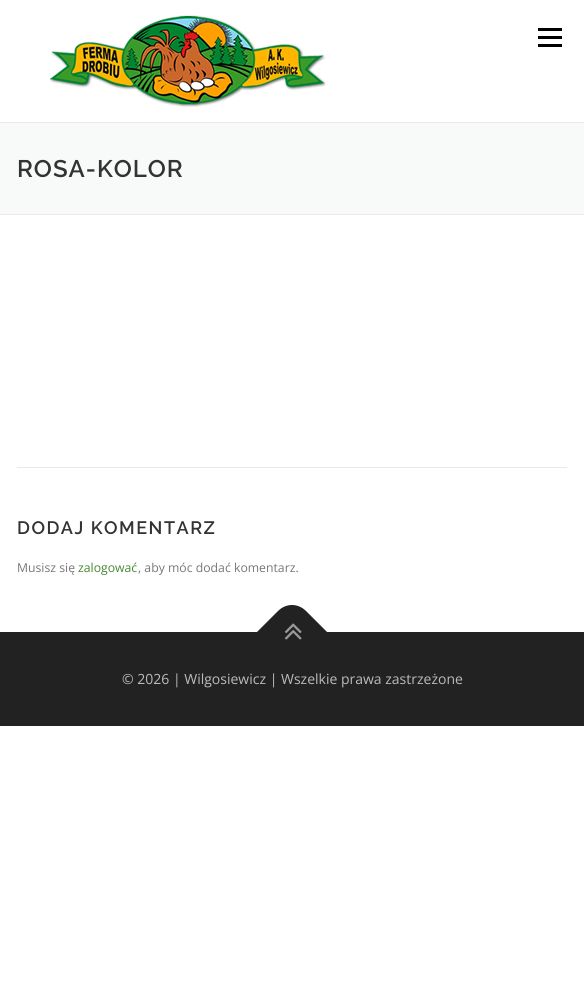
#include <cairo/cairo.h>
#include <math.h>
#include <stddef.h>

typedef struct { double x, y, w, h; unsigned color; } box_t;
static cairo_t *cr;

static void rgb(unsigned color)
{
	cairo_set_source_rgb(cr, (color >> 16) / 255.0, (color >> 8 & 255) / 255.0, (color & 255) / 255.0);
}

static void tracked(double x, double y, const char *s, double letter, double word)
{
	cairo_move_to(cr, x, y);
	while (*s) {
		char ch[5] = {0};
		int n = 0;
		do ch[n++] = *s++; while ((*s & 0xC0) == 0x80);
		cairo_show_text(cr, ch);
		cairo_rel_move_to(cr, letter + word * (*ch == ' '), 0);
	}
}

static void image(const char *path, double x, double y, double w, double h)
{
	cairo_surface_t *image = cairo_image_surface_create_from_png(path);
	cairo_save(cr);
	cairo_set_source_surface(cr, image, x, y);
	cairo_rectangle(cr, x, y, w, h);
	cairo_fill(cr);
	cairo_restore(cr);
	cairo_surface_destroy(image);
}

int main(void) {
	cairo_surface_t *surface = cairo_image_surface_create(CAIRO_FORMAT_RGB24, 584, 1003);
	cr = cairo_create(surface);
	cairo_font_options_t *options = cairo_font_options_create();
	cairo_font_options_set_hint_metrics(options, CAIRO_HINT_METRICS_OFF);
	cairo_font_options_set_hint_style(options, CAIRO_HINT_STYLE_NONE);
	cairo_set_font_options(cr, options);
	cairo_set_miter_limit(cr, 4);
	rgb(0xffffff);
	cairo_paint(cr);
	image("img/1.png", 50, 15, 276, 92);
	{
		static const box_t items[] = {
			{538, 36, 24, 3, 0x000000},
			{538, 28, 24, 3, 0x000000},
			{538, 44, 24, 3, 0x000000},
			{0, 123, 584, 91, 0xf8f9f9},
			{0, 122, 584, 1, 0xe9e9e9},
			{0, 214, 584, 1, 0xe9e9e9},
			{17, 467, 550, 1, 0xe9e9e9},
			{0, 632, 584, 94, 0x222222},
		};
		for (size_t i = 0; i < sizeof items / sizeof *items; i++) {
			rgb(items[i].color);
			cairo_rectangle(cr, items[i].x, items[i].y, items[i].w, items[i].h);
			cairo_fill(cr);
		}
	}
	cairo_new_path(cr);
	cairo_move_to(cr, 257, 632);
	cairo_line_to(cr, 278, 611);
	cairo_curve_to(cr, 286, 603, 298, 603, 306, 611);
	cairo_line_to(cr, 327, 632);
	cairo_line_to(cr, 292, 667);
	cairo_close_path(cr);
	cairo_fill(cr);
	image("img/2.png", 284, 623, 18, 17);
	cairo_select_font_face(cr, "Raleway SemiBold", CAIRO_FONT_SLANT_NORMAL, CAIRO_FONT_WEIGHT_NORMAL);
	cairo_set_font_size(cr, 24);
	rgb(0x333333);
	tracked(17, 177, "ROSA-KOLOR", 1, 0);
	cairo_set_font_size(cr, 18);
	tracked(17, 534, "DODAJ KOMENTARZ", 1.5, 0);
	cairo_select_font_face(cr, "Open Sans", CAIRO_FONT_SLANT_NORMAL, CAIRO_FONT_WEIGHT_NORMAL);
	cairo_set_font_size(cr, 12.25);
	rgb(0x777777);
	cairo_move_to(cr, 17, 572);
	cairo_show_text(cr, "Musisz się");
	rgb(0x448833);
	cairo_move_to(cr, 78, 572);
	cairo_show_text(cr, "zalogować");
	rgb(0x777777);
	cairo_move_to(cr, 138, 572);
	cairo_show_text(cr, ", aby móc dodać komentarz.");
	cairo_set_font_size(cr, 14);
	rgb(0xbbbbbb);
	cairo_move_to(cr, 122, 684);
	cairo_show_text(cr, "© 2026 | Wilgosiewicz | Wszelkie prawa zastrzeżone");
	cairo_surface_write_to_png(surface, "page.png");
	cairo_font_options_destroy(options);
	cairo_destroy(cr);
	cairo_surface_destroy(surface);
	return 0;
}
